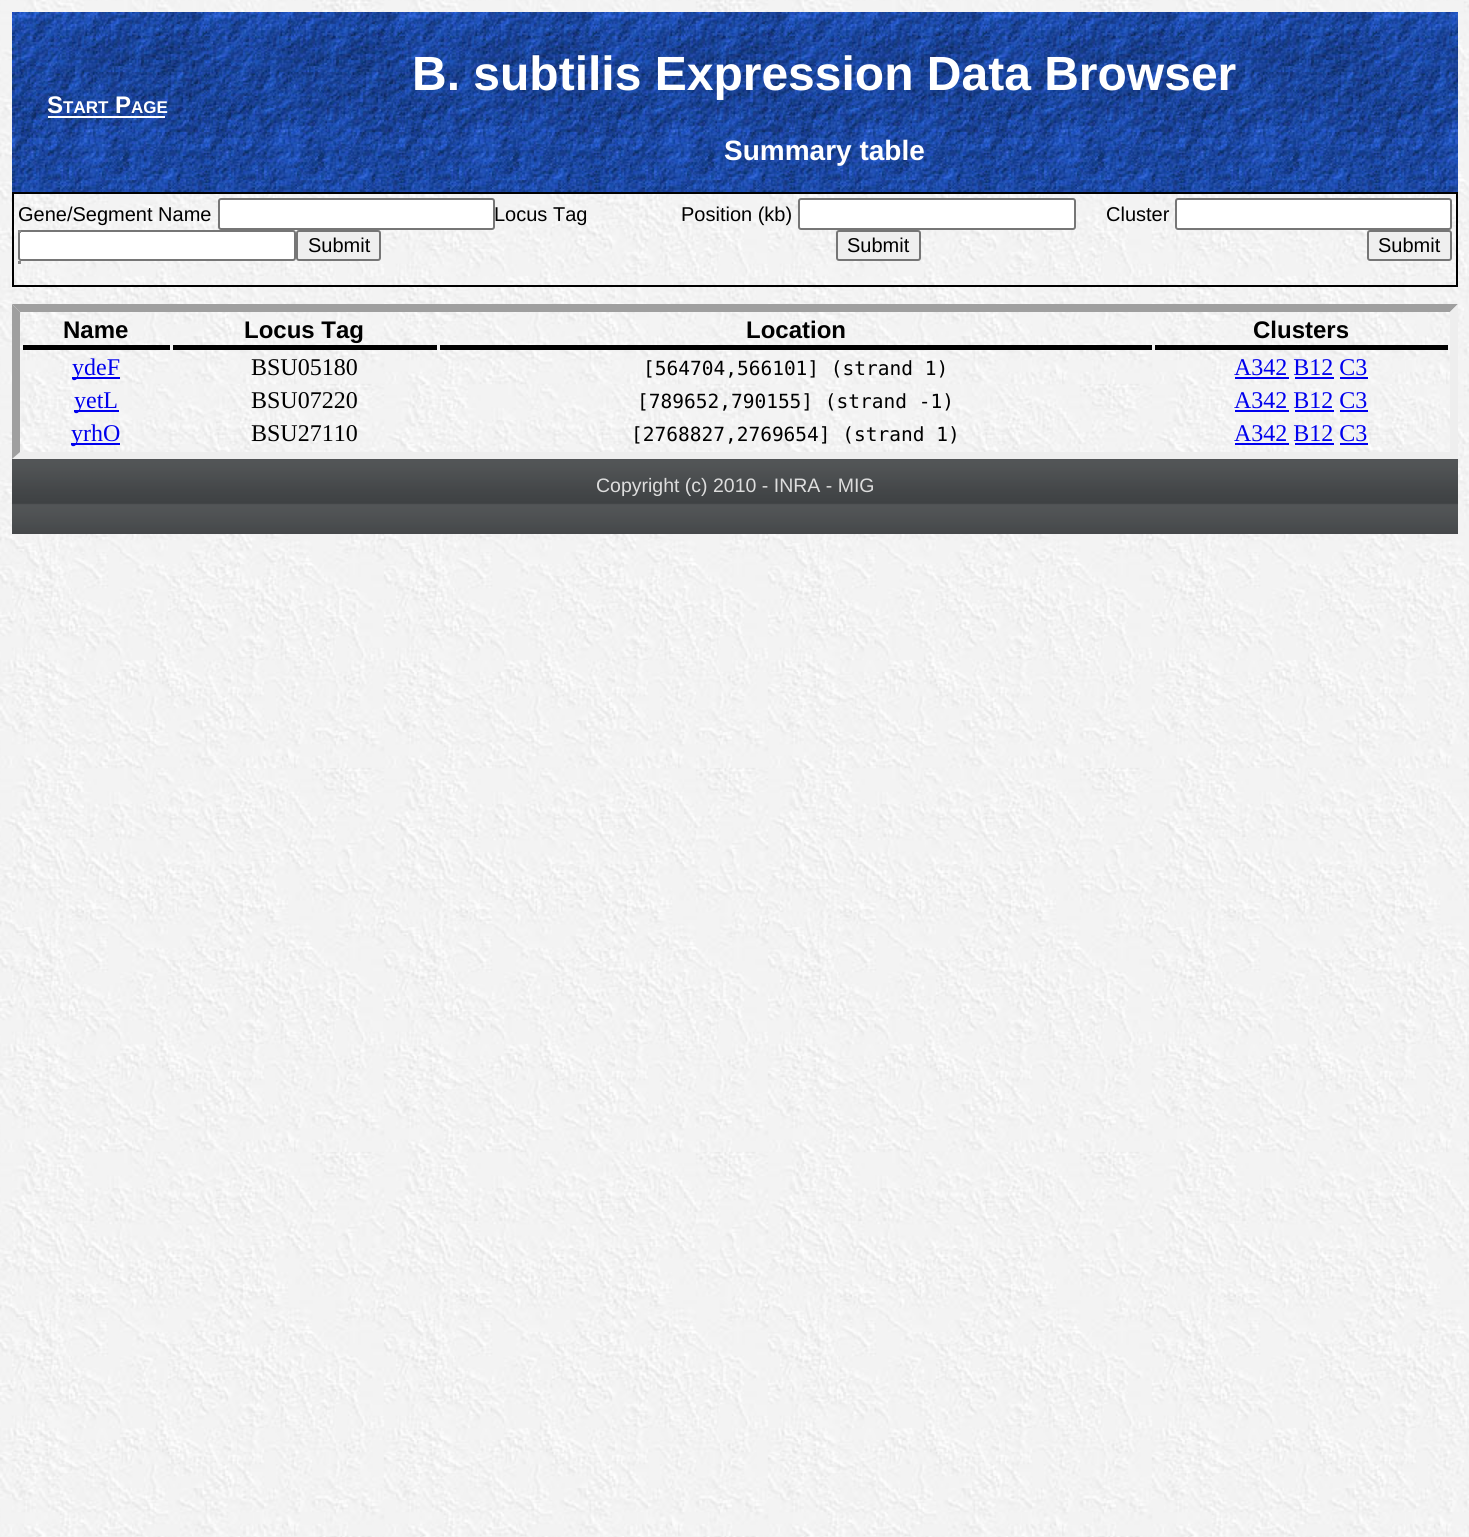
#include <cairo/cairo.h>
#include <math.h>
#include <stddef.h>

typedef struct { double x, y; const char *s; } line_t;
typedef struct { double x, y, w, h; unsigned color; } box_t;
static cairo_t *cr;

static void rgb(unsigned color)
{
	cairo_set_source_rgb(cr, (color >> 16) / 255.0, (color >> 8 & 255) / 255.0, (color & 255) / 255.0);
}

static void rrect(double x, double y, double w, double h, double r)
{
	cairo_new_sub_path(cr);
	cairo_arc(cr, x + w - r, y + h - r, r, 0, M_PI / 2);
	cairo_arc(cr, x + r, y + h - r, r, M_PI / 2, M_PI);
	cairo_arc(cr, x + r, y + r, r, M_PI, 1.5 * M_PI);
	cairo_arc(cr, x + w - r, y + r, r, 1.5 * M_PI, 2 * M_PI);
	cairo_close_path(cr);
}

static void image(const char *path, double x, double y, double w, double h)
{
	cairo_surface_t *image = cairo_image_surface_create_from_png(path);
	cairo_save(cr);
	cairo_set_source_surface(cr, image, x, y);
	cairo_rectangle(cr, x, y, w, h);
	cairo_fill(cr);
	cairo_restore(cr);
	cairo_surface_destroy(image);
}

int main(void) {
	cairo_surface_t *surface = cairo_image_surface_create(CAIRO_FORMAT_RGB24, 1469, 1537);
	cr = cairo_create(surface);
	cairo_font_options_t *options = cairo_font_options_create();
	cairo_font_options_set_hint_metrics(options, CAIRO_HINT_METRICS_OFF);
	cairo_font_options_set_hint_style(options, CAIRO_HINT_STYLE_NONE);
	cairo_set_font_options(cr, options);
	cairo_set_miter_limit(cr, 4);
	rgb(0xffffff);
	cairo_paint(cr);
	image("img/1.png", 0, 0, 1469, 1537);
	image("img/2.png", 12, 12, 1446, 180);
	rgb(0xffffff);
	cairo_rectangle(cr, 48, 116, 117, 2);
	cairo_fill(cr);
	cairo_rectangle(cr, 13, 193, 1444, 93);
	rgb(0x000000);
	cairo_stroke(cr);
	rgb(0xffffff);
	rrect(219, 199, 275, 30, 2);
	cairo_fill_preserve(cr);
	rgb(0x767676);
	cairo_stroke(cr);
	rgb(0xffffff);
	rrect(19, 231, 276, 29, 2);
	cairo_fill_preserve(cr);
	rgb(0x767676);
	cairo_stroke(cr);
	rgb(0x888888);
	cairo_rectangle(cr, 18, 230, 3, 3);
	cairo_fill(cr);
	rgb(0xefefef);
	rrect(297, 231, 83, 29, 2);
	cairo_fill_preserve(cr);
	rgb(0x767676);
	cairo_stroke(cr);
	rgb(0x888888);
	cairo_rectangle(cr, 18, 261, 3, 3);
	cairo_fill(cr);
	rgb(0xffffff);
	rrect(799, 199, 276, 30, 2);
	cairo_fill_preserve(cr);
	rgb(0x767676);
	cairo_stroke(cr);
	rgb(0xefefef);
	rrect(837, 231, 83, 29, 2);
	cairo_fill_preserve(cr);
	rgb(0x767676);
	cairo_stroke(cr);
	rgb(0xffffff);
	rrect(1176, 199, 275, 30, 2);
	cairo_fill_preserve(cr);
	rgb(0x767676);
	cairo_stroke(cr);
	rgb(0xefefef);
	rrect(1368, 231, 83, 29, 2);
	cairo_fill_preserve(cr);
	rgb(0x767676);
	cairo_stroke(cr);
	rgb(0x9f9f9f);
	cairo_new_path(cr);
	cairo_move_to(cr, 12, 304);
	cairo_line_to(cr, 1458, 304);
	cairo_line_to(cr, 1450, 312);
	cairo_line_to(cr, 20, 312);
	cairo_close_path(cr);
	cairo_fill(cr);
	rgb(0xeeeeee);
	cairo_new_path(cr);
	cairo_move_to(cr, 1458, 304);
	cairo_line_to(cr, 1458, 459);
	cairo_line_to(cr, 1450, 452);
	cairo_line_to(cr, 1450, 312);
	cairo_close_path(cr);
	cairo_fill(cr);
	cairo_new_path(cr);
	cairo_move_to(cr, 1458, 459);
	cairo_line_to(cr, 12, 459);
	cairo_line_to(cr, 20, 452);
	cairo_line_to(cr, 1450, 452);
	cairo_close_path(cr);
	cairo_fill(cr);
	rgb(0x9f9f9f);
	cairo_new_path(cr);
	cairo_move_to(cr, 12, 459);
	cairo_line_to(cr, 12, 304);
	cairo_line_to(cr, 20, 312);
	cairo_line_to(cr, 20, 452);
	cairo_close_path(cr);
	cairo_fill(cr);
	{
		static const box_t items[] = {
			{23, 345, 147, 5, 0x000000},
			{173, 345, 264, 5, 0x000000},
			{440, 345, 712, 5, 0x000000},
			{1155, 345, 293, 5, 0x000000},
			{72, 377, 48, 2, 0x0000ee},
			{1235, 377, 54, 2, 0x0000ee},
			{1295, 377, 39, 2, 0x0000ee},
			{1340, 377, 28, 2, 0x0000ee},
			{74, 410, 45, 2, 0x0000ee},
			{1235, 410, 54, 2, 0x0000ee},
			{1295, 410, 39, 2, 0x0000ee},
			{1340, 410, 28, 2, 0x0000ee},
			{71, 443, 49, 2, 0x0000ee},
			{1235, 443, 54, 2, 0x0000ee},
			{1295, 443, 39, 2, 0x0000ee},
			{1340, 443, 28, 2, 0x0000ee},
		};
		for (size_t i = 0; i < sizeof items / sizeof *items; i++) {
			rgb(items[i].color);
			cairo_rectangle(cr, items[i].x, items[i].y, items[i].w, items[i].h);
			cairo_fill(cr);
		}
	}
	image("img/3.png", 12, 459, 1446, 75);
	cairo_select_font_face(cr, "Liberation Sans", CAIRO_FONT_SLANT_NORMAL, CAIRO_FONT_WEIGHT_BOLD);
	cairo_set_font_size(cr, 24);
	rgb(0xffffff);
	cairo_move_to(cr, 47, 113);
	cairo_show_text(cr, "S");
	cairo_set_font_size(cr, 17);
	cairo_move_to(cr, 63, 113);
	cairo_show_text(cr, "TART");
	cairo_set_font_size(cr, 24);
	cairo_move_to(cr, 115, 113);
	cairo_show_text(cr, "P");
	cairo_set_font_size(cr, 17);
	cairo_move_to(cr, 131, 113);
	cairo_show_text(cr, "AGE");
	cairo_set_font_size(cr, 48);
	cairo_move_to(cr, 412, 90);
	cairo_show_text(cr, "B. subtilis Expression Data Browser");
	cairo_set_font_size(cr, 28);
	cairo_move_to(cr, 724, 160);
	cairo_show_text(cr, "Summary table");
	cairo_select_font_face(cr, "Liberation Sans", CAIRO_FONT_SLANT_NORMAL, CAIRO_FONT_WEIGHT_NORMAL);
	cairo_set_font_size(cr, 20);
	rgb(0x000000);
	{
		static const line_t items[] = {
			{18, 221, "Gene/Segment Name"},
			{494, 221, "Locus Tag"},
			{308, 252, "Submit"},
			{681, 221, "Position (kb)"},
			{847, 252, "Submit"},
			{1106, 221, "Cluster"},
			{1378, 252, "Submit"},
		};
		for (size_t i = 0; i < sizeof items / sizeof *items; i++) {
			cairo_move_to(cr, items[i].x, items[i].y);
			cairo_show_text(cr, items[i].s);
		}
	}
	cairo_select_font_face(cr, "Liberation Sans", CAIRO_FONT_SLANT_NORMAL, CAIRO_FONT_WEIGHT_BOLD);
	cairo_set_font_size(cr, 24);
	{
		static const line_t items[] = {
			{63, 338, "Name"},
			{244, 338, "Locus Tag"},
			{746, 338, "Location"},
			{1253, 338, "Clusters"},
		};
		for (size_t i = 0; i < sizeof items / sizeof *items; i++) {
			cairo_move_to(cr, items[i].x, items[i].y);
			cairo_show_text(cr, items[i].s);
		}
	}
	cairo_select_font_face(cr, "Liberation Serif", CAIRO_FONT_SLANT_NORMAL, CAIRO_FONT_WEIGHT_NORMAL);
	rgb(0x0000ee);
	cairo_move_to(cr, 72, 375);
	cairo_show_text(cr, "ydeF");
	rgb(0x000000);
	cairo_move_to(cr, 251, 375);
	cairo_show_text(cr, "BSU05180");
	cairo_select_font_face(cr, "DejaVu Sans Mono", CAIRO_FONT_SLANT_NORMAL, CAIRO_FONT_WEIGHT_NORMAL);
	cairo_set_font_size(cr, 19.5);
	cairo_move_to(cr, 643, 375);
	cairo_show_text(cr, "[564704,566101] (strand 1)");
	cairo_select_font_face(cr, "Liberation Serif", CAIRO_FONT_SLANT_NORMAL, CAIRO_FONT_WEIGHT_NORMAL);
	cairo_set_font_size(cr, 24);
	rgb(0x0000ee);
	cairo_move_to(cr, 1234, 375);
	cairo_show_text(cr, "A342 B12 C3");
	cairo_move_to(cr, 74, 408);
	cairo_show_text(cr, "yetL");
	rgb(0x000000);
	cairo_move_to(cr, 251, 408);
	cairo_show_text(cr, "BSU07220");
	cairo_select_font_face(cr, "DejaVu Sans Mono", CAIRO_FONT_SLANT_NORMAL, CAIRO_FONT_WEIGHT_NORMAL);
	cairo_set_font_size(cr, 19.5);
	cairo_move_to(cr, 637, 408);
	cairo_show_text(cr, "[789652,790155] (strand -1)");
	cairo_select_font_face(cr, "Liberation Serif", CAIRO_FONT_SLANT_NORMAL, CAIRO_FONT_WEIGHT_NORMAL);
	cairo_set_font_size(cr, 24);
	rgb(0x0000ee);
	cairo_move_to(cr, 1234, 408);
	cairo_show_text(cr, "A342 B12 C3");
	cairo_move_to(cr, 71, 441);
	cairo_show_text(cr, "yrhO");
	rgb(0x000000);
	cairo_move_to(cr, 251, 441);
	cairo_show_text(cr, "BSU27110");
	cairo_select_font_face(cr, "DejaVu Sans Mono", CAIRO_FONT_SLANT_NORMAL, CAIRO_FONT_WEIGHT_NORMAL);
	cairo_set_font_size(cr, 19.5);
	cairo_move_to(cr, 631, 441);
	cairo_show_text(cr, "[2768827,2769654] (strand 1)");
	cairo_select_font_face(cr, "Liberation Serif", CAIRO_FONT_SLANT_NORMAL, CAIRO_FONT_WEIGHT_NORMAL);
	cairo_set_font_size(cr, 24);
	rgb(0x0000ee);
	cairo_move_to(cr, 1234, 441);
	cairo_show_text(cr, "A342 B12 C3");
	cairo_select_font_face(cr, "Liberation Sans", CAIRO_FONT_SLANT_NORMAL, CAIRO_FONT_WEIGHT_NORMAL);
	cairo_set_font_size(cr, 19.5);
	rgb(0xdddddd);
	cairo_move_to(cr, 596, 492);
	cairo_show_text(cr, "Copyright (c) 2010 - INRA - MIG");
	cairo_surface_write_to_png(surface, "page.png");
	cairo_font_options_destroy(options);
	cairo_destroy(cr);
	cairo_surface_destroy(surface);
	return 0;
}
